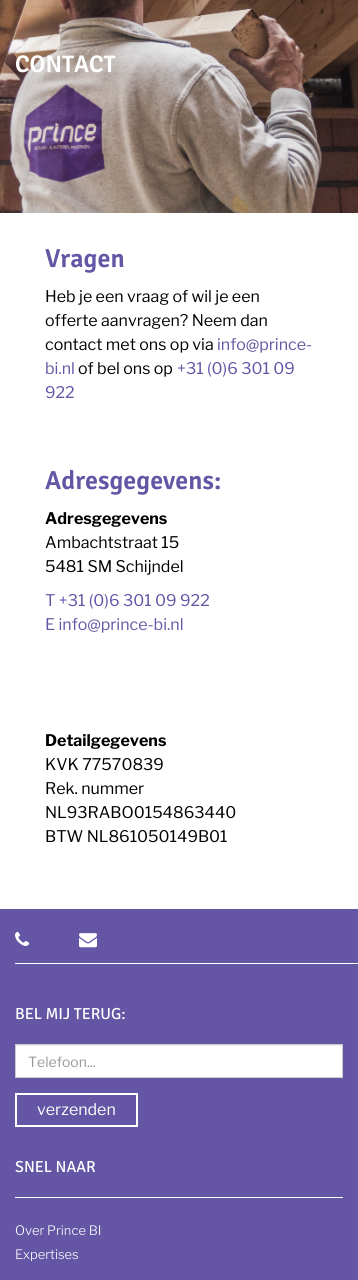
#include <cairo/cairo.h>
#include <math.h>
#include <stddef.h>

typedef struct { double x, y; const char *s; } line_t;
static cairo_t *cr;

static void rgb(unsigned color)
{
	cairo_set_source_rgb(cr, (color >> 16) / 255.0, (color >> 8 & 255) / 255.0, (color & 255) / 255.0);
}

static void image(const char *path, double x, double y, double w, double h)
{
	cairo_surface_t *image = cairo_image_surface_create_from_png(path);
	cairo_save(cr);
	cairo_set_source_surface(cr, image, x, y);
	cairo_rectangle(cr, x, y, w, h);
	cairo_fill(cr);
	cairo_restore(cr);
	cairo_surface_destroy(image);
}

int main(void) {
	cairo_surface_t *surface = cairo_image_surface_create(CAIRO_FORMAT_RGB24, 358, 1280);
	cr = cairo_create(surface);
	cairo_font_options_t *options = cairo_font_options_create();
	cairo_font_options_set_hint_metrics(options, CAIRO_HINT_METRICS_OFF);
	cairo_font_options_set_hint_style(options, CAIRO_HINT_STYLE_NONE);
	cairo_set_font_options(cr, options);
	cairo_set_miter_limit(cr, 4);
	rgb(0xffffff);
	cairo_paint(cr);
	image("img/1.png", 0, 0, 358, 213);
	rgb(0x6455a5);
	cairo_rectangle(cr, 0, 909, 358, 371);
	cairo_fill(cr);
	rgb(0xffffff);
	cairo_rectangle(cr, 15, 963, 343, 1);
	cairo_fill(cr);
	image("img/2.png", 15, 931, 15, 15);
	image("img/3.png", 79, 933, 18, 15);
	cairo_rectangle(cr, 16, 1046, 326, 31);
	cairo_fill(cr);
	rgb(0xececec);
	cairo_rectangle(cr, 16, 1045, 326, 1);
	cairo_fill(cr);
	cairo_rectangle(cr, 15.5, 1044.5, 327, 33);
	rgb(0xcccccc);
	cairo_set_line_width(cr, 1);
	cairo_stroke(cr);
	cairo_rectangle(cr, 16, 1094, 121, 32);
	rgb(0xffffff);
	cairo_set_line_width(cr, 2);
	cairo_stroke(cr);
	cairo_rectangle(cr, 15, 1197, 328, 1);
	cairo_fill(cr);
	cairo_select_font_face(cr, "Signika SemiBold", CAIRO_FONT_SLANT_NORMAL, CAIRO_FONT_WEIGHT_NORMAL);
	cairo_set_font_size(cr, 24);
	cairo_move_to(cr, 15, 72);
	cairo_show_text(cr, "CONTACT");
	cairo_set_font_size(cr, 26);
	rgb(0x6455a5);
	cairo_move_to(cr, 45, 267);
	cairo_show_text(cr, "Vragen");
	cairo_select_font_face(cr, "Libre Franklin", CAIRO_FONT_SLANT_NORMAL, CAIRO_FONT_WEIGHT_NORMAL);
	cairo_set_font_size(cr, 16);
	rgb(0x000000);
	{
		static const line_t items[] = {
			{45, 302, "Heb je een vraag of wil je een"},
			{45, 326, "offerte aanvragen? Neem dan"},
			{45, 350, "contact met ons op via"},
		};
		for (size_t i = 0; i < sizeof items / sizeof *items; i++) {
			cairo_move_to(cr, items[i].x, items[i].y);
			cairo_show_text(cr, items[i].s);
		}
	}
	rgb(0x6455a5);
	cairo_move_to(cr, 217, 350);
	cairo_show_text(cr, "info@prince-");
	cairo_move_to(cr, 45, 374);
	cairo_show_text(cr, "bi.nl");
	rgb(0x000000);
	cairo_move_to(cr, 78, 374);
	cairo_show_text(cr, "of bel ons op");
	rgb(0x6455a5);
	cairo_move_to(cr, 177, 374);
	cairo_show_text(cr, "+31 (0)6 301 09");
	cairo_move_to(cr, 45, 398);
	cairo_show_text(cr, "922");
	cairo_select_font_face(cr, "Signika SemiBold", CAIRO_FONT_SLANT_NORMAL, CAIRO_FONT_WEIGHT_NORMAL);
	cairo_set_font_size(cr, 26);
	cairo_move_to(cr, 45, 489);
	cairo_show_text(cr, "Adresgegevens:");
	cairo_select_font_face(cr, "Libre Franklin", CAIRO_FONT_SLANT_NORMAL, CAIRO_FONT_WEIGHT_BOLD);
	cairo_set_font_size(cr, 16);
	rgb(0x000000);
	cairo_move_to(cr, 45, 524);
	cairo_show_text(cr, "Adresgegevens");
	cairo_select_font_face(cr, "Libre Franklin", CAIRO_FONT_SLANT_NORMAL, CAIRO_FONT_WEIGHT_NORMAL);
	cairo_move_to(cr, 45, 548);
	cairo_show_text(cr, "Ambachtstraat 15");
	cairo_move_to(cr, 45, 572);
	cairo_show_text(cr, "5481 SM Schijndel");
	rgb(0x6455a5);
	cairo_move_to(cr, 45, 606);
	cairo_show_text(cr, "T +31 (0)6 301 09 922");
	cairo_move_to(cr, 45, 630);
	cairo_show_text(cr, "E info@prince-bi.nl");
	cairo_select_font_face(cr, "Libre Franklin", CAIRO_FONT_SLANT_NORMAL, CAIRO_FONT_WEIGHT_BOLD);
	rgb(0x000000);
	cairo_move_to(cr, 45, 746);
	cairo_show_text(cr, "Detailgegevens");
	cairo_select_font_face(cr, "Libre Franklin", CAIRO_FONT_SLANT_NORMAL, CAIRO_FONT_WEIGHT_NORMAL);
	{
		static const line_t items[] = {
			{45, 770, "KVK 77570839"},
			{45, 794, "Rek. nummer"},
			{45, 818, "NL93RABO0154863440"},
			{45, 842, "BTW NL861050149B01"},
		};
		for (size_t i = 0; i < sizeof items / sizeof *items; i++) {
			cairo_move_to(cr, items[i].x, items[i].y);
			cairo_show_text(cr, items[i].s);
		}
	}
	cairo_select_font_face(cr, "Signika", CAIRO_FONT_SLANT_NORMAL, CAIRO_FONT_WEIGHT_NORMAL);
	rgb(0xffffff);
	cairo_move_to(cr, 15, 1019);
	cairo_show_text(cr, "BEL MIJ TERUG:");
	cairo_select_font_face(cr, "Libre Franklin", CAIRO_FONT_SLANT_NORMAL, CAIRO_FONT_WEIGHT_NORMAL);
	cairo_set_font_size(cr, 14);
	rgb(0x999999);
	cairo_move_to(cr, 28, 1067);
	cairo_show_text(cr, "Telefoon...");
	cairo_set_font_size(cr, 16);
	rgb(0xffffff);
	cairo_move_to(cr, 37, 1115);
	cairo_show_text(cr, "verzenden");
	cairo_select_font_face(cr, "Signika", CAIRO_FONT_SLANT_NORMAL, CAIRO_FONT_WEIGHT_NORMAL);
	cairo_move_to(cr, 15, 1172);
	cairo_show_text(cr, "SNEL NAAR");
	cairo_select_font_face(cr, "Libre Franklin Light", CAIRO_FONT_SLANT_NORMAL, CAIRO_FONT_WEIGHT_NORMAL);
	cairo_set_font_size(cr, 13);
	cairo_move_to(cr, 15, 1235);
	cairo_show_text(cr, "Over Prince BI");
	cairo_move_to(cr, 15, 1259);
	cairo_show_text(cr, "Expertises");
	cairo_surface_write_to_png(surface, "page.png");
	cairo_font_options_destroy(options);
	cairo_destroy(cr);
	cairo_surface_destroy(surface);
	return 0;
}
